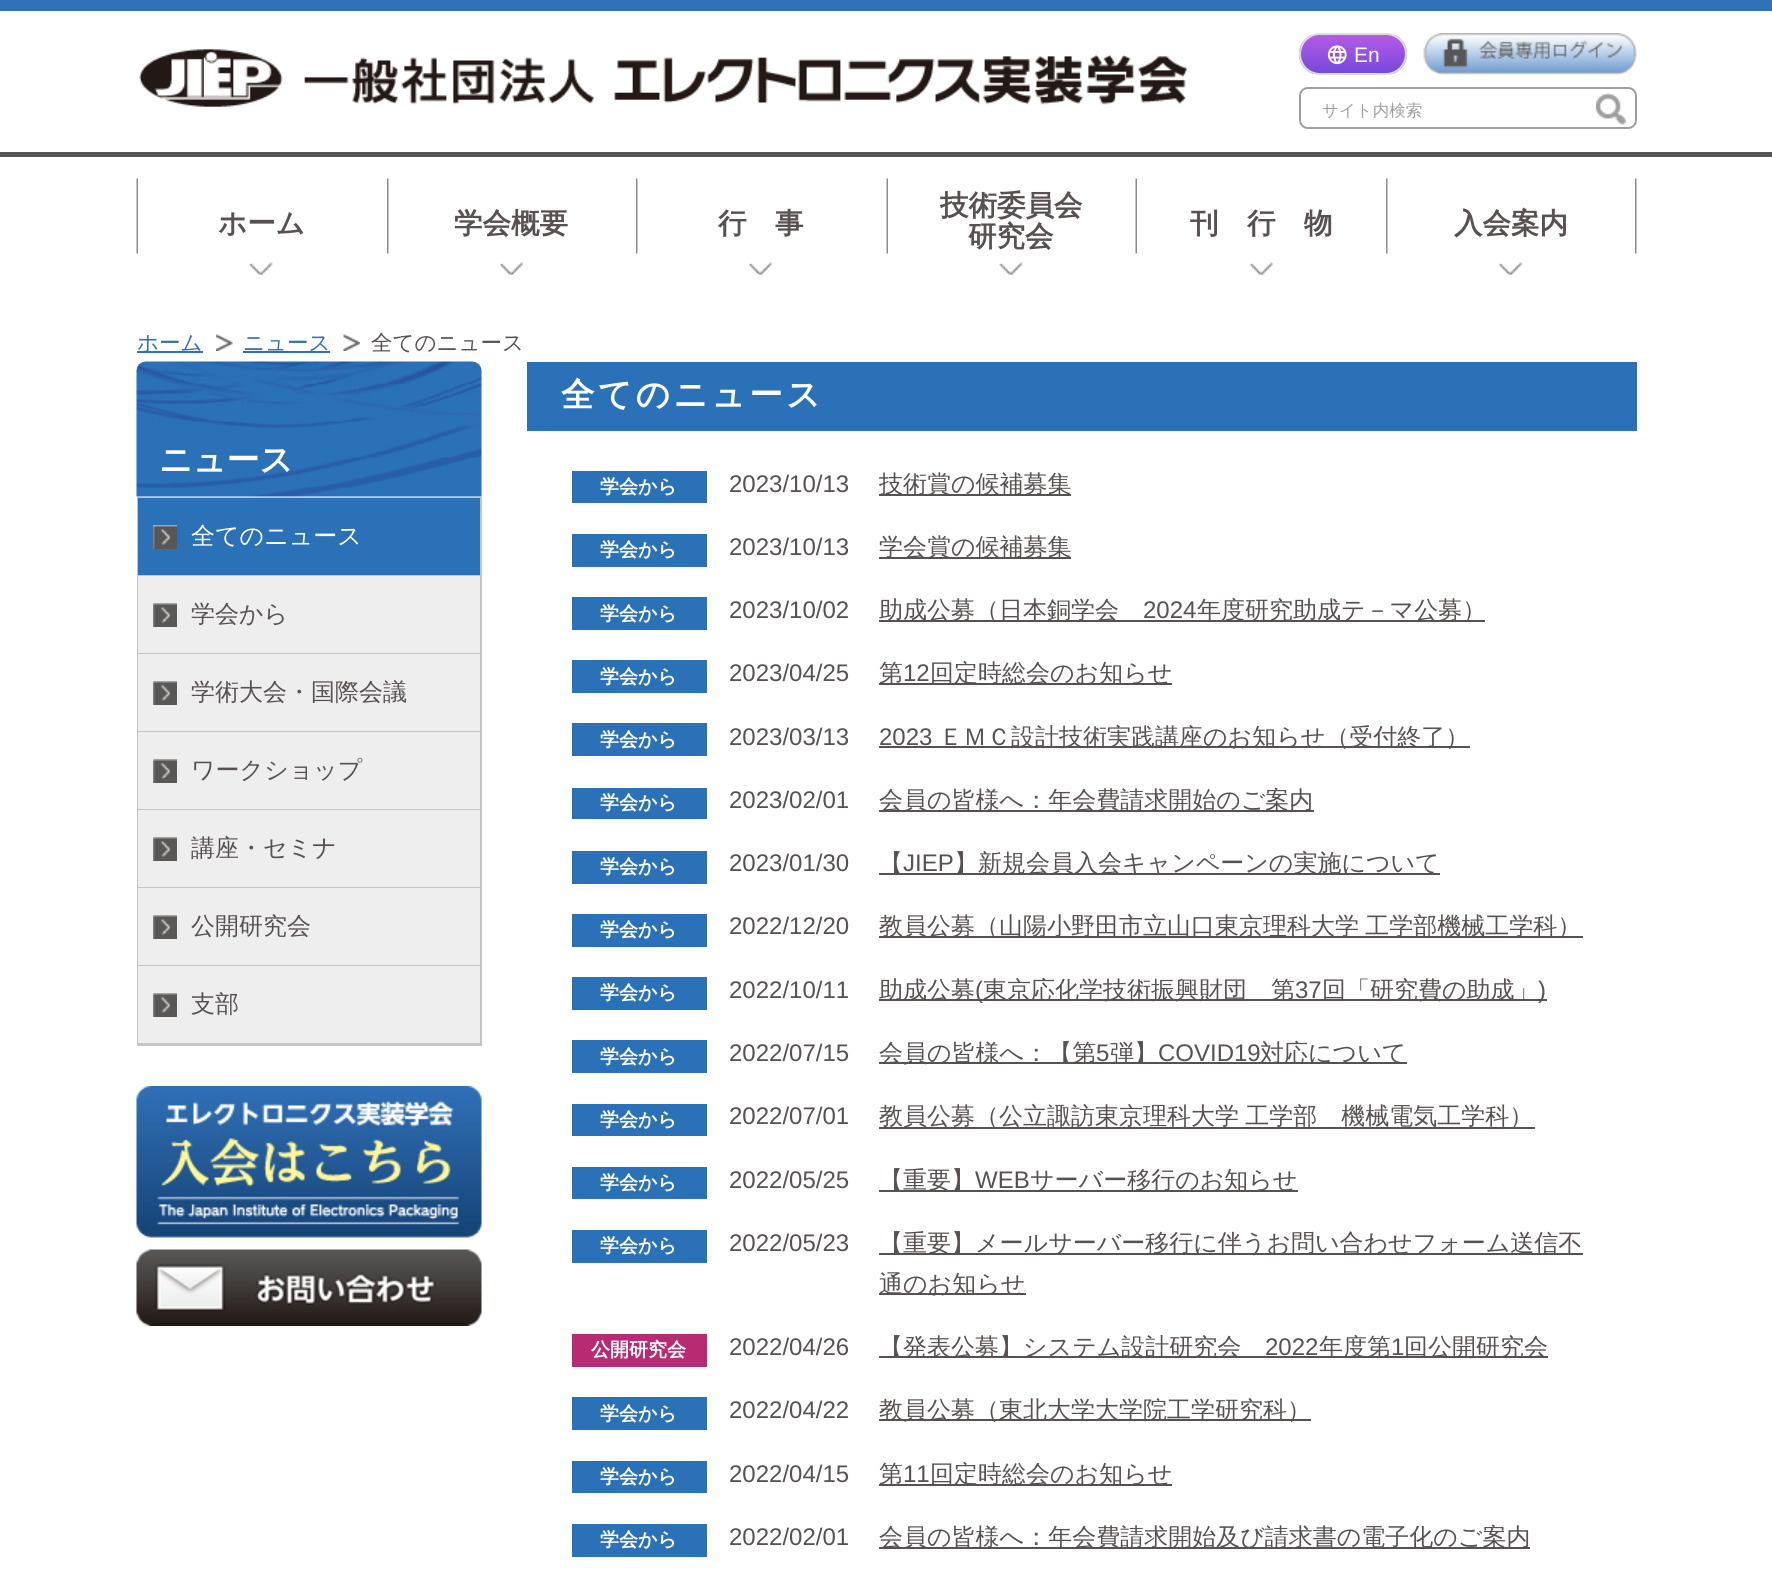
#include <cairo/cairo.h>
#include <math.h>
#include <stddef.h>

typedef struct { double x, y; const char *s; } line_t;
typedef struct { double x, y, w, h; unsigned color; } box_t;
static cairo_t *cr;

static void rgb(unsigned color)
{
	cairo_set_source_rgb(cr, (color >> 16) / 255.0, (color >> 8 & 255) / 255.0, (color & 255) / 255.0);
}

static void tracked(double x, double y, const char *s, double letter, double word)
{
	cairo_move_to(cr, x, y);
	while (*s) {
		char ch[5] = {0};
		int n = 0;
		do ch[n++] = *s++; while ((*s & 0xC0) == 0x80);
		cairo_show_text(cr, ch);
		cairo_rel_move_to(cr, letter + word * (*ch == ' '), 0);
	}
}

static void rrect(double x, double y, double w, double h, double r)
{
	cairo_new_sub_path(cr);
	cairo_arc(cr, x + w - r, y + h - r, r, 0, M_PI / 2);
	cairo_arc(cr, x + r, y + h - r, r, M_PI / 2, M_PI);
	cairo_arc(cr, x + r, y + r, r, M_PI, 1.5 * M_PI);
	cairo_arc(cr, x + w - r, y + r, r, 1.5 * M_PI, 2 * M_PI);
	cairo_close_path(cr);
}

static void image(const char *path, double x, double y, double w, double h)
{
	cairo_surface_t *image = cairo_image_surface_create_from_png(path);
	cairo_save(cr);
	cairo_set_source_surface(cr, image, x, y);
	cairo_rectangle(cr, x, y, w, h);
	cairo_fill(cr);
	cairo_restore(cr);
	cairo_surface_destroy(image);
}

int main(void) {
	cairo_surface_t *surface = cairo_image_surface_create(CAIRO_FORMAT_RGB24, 1772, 1578);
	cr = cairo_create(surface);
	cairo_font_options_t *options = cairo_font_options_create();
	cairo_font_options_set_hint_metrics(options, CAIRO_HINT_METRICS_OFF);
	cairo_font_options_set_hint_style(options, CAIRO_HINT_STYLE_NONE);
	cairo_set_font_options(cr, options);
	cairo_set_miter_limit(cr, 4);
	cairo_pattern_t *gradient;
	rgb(0xffffff);
	cairo_paint(cr);
	rgb(0x3071b9);
	cairo_rectangle(cr, 0, 0, 1772, 11);
	cairo_fill(cr);
	rgb(0x585756);
	cairo_rectangle(cr, 0, 152, 1772, 5);
	cairo_fill(cr);
	image("img/1.png", 139, 49, 1048, 58);
	cairo_save(cr);
	rrect(1299, 33, 108, 42, 21);
	cairo_clip(cr);
	gradient = cairo_pattern_create_linear(1353, 74, 1353, 35);
	cairo_pattern_add_color_stop_rgba(gradient, 0, 0.451, 0.286, 0.863, 1);
	cairo_pattern_add_color_stop_rgba(gradient, 1, 0.714, 0.353, 0.894, 1);
	cairo_set_source(cr, gradient);
	cairo_pattern_destroy(gradient);
	cairo_rectangle(cr, 1299, 35, 108, 39);
	cairo_fill(cr);
	cairo_restore(cr);
	rrect(1300, 34, 106, 40, 20);
	rgb(0xdddddd);
	cairo_stroke(cr);
	image("img/2.png", 1327, 45, 20, 20);
	image("img/3.png", 1423, 33, 214, 42);
	rrect(1300, 88, 336, 40, 8);
	rgb(0x9e9e9f);
	cairo_stroke(cr);
	image("img/4.png", 1596, 93, 30, 32);
	image("img/5.png", 1635, 178, 2, 76);
	image("img/6.png", 136, 178, 137, 97);
	image("img/7.png", 387, 178, 137, 97);
	image("img/8.png", 636, 178, 137, 97);
	image("img/6.png", 886, 178, 137, 97);
	image("img/9.png", 1135, 178, 139, 97);
	image("img/8.png", 1386, 178, 137, 97);
	image("img/10.png", 216, 334, 17, 17);
	rgb(0x3070b7);
	cairo_rectangle(cr, 137, 351, 66, 2);
	cairo_fill(cr);
	image("img/11.png", 343, 334, 17, 17);
	cairo_rectangle(cr, 243, 351, 87, 2);
	cairo_fill(cr);
	image("img/12.png", 136, 361, 346, 136);
	cairo_rectangle(cr, 138, 498, 343, 547);
	rgb(0xc4c4c5);
	cairo_stroke(cr);
	cairo_rectangle(cr, 138, 575, 342, 1);
	cairo_fill(cr);
	rgb(0x2b71b8);
	cairo_rectangle(cr, 138, 498, 342, 77);
	cairo_fill(cr);
	image("img/13.png", 153, 525, 24, 24);
	rgb(0xeeeeee);
	cairo_rectangle(cr, 138, 576, 342, 77);
	cairo_fill(cr);
	image("img/13.png", 153, 603, 24, 24);
	rgb(0xc4c4c5);
	cairo_rectangle(cr, 138, 653, 342, 1);
	cairo_fill(cr);
	rgb(0xeeeeee);
	cairo_rectangle(cr, 138, 654, 342, 77);
	cairo_fill(cr);
	image("img/13.png", 153, 681, 24, 24);
	rgb(0xc4c4c5);
	cairo_rectangle(cr, 138, 731, 342, 1);
	cairo_fill(cr);
	rgb(0xeeeeee);
	cairo_rectangle(cr, 138, 732, 342, 77);
	cairo_fill(cr);
	image("img/13.png", 153, 759, 24, 24);
	rgb(0xc4c4c5);
	cairo_rectangle(cr, 138, 809, 342, 1);
	cairo_fill(cr);
	rgb(0xeeeeee);
	cairo_rectangle(cr, 138, 810, 342, 77);
	cairo_fill(cr);
	image("img/13.png", 153, 837, 24, 24);
	rgb(0xc4c4c5);
	cairo_rectangle(cr, 138, 887, 342, 1);
	cairo_fill(cr);
	rgb(0xeeeeee);
	cairo_rectangle(cr, 138, 888, 342, 77);
	cairo_fill(cr);
	image("img/13.png", 153, 915, 24, 24);
	rgb(0xc4c4c5);
	cairo_rectangle(cr, 138, 965, 342, 1);
	cairo_fill(cr);
	rgb(0xeeeeee);
	cairo_rectangle(cr, 138, 966, 342, 77);
	cairo_fill(cr);
	image("img/13.png", 153, 993, 24, 24);
	rgb(0xc4c4c5);
	cairo_rectangle(cr, 138, 1043, 342, 1);
	cairo_fill(cr);
	image("img/14.png", 136, 1086, 346, 152);
	image("img/15.png", 136, 1249, 346, 77);
	{
		static const box_t items[] = {
			{527, 362, 1110, 69, 0x2b71b8},
			{572, 471, 135, 32, 0x2b71b8},
			{879, 494, 192, 2, 0x585151},
			{572, 534, 135, 33, 0x2b71b8},
			{879, 557, 192, 2, 0x585151},
			{572, 597, 135, 33, 0x2b71b8},
			{879, 620, 606, 2, 0x585151},
			{572, 660, 135, 33, 0x2b71b8},
			{879, 683, 293, 2, 0x585151},
			{572, 723, 135, 33, 0x2b71b8},
			{879, 746, 591, 2, 0x585151},
			{572, 788, 135, 31, 0x2b71b8},
			{879, 810, 435, 2, 0x585151},
			{572, 851, 135, 33, 0x2b71b8},
			{879, 873, 561, 2, 0x585151},
			{572, 914, 135, 33, 0x2b71b8},
			{879, 936, 704, 2, 0x585151},
			{572, 977, 135, 33, 0x2b71b8},
			{879, 999, 668, 2, 0x585151},
			{572, 1040, 135, 33, 0x2b71b8},
			{879, 1062, 528, 2, 0x585151},
			{572, 1104, 135, 32, 0x2b71b8},
			{879, 1127, 656, 2, 0x585151},
			{572, 1167, 135, 32, 0x2b71b8},
			{879, 1190, 419, 2, 0x585151},
			{572, 1230, 135, 33, 0x2b71b8},
			{879, 1253, 704, 2, 0x585151},
			{879, 1293, 147, 2, 0x585151},
			{572, 1334, 135, 33, 0xb82a71},
			{879, 1356, 669, 2, 0x585151},
			{572, 1397, 135, 33, 0x2b71b8},
			{879, 1419, 432, 2, 0x585151},
			{572, 1461, 135, 32, 0x2b71b8},
			{879, 1484, 293, 2, 0x585151},
			{572, 1524, 135, 33, 0x2b71b8},
			{879, 1547, 651, 2, 0x585151},
		};
		for (size_t i = 0; i < sizeof items / sizeof *items; i++) {
			rgb(items[i].color);
			cairo_rectangle(cr, items[i].x, items[i].y, items[i].w, items[i].h);
			cairo_fill(cr);
		}
	}
	cairo_select_font_face(cr, "Liberation Sans", CAIRO_FONT_SLANT_NORMAL, CAIRO_FONT_WEIGHT_NORMAL);
	cairo_set_font_size(cr, 21);
	rgb(0xffffff);
	cairo_move_to(cr, 1354, 62);
	cairo_show_text(cr, "En");
	cairo_select_font_face(cr, "WenQuanYi Zen Hei Medium", CAIRO_FONT_SLANT_NORMAL, CAIRO_FONT_WEIGHT_NORMAL);
	cairo_set_font_size(cr, 16.5);
	rgb(0x9f9fa0);
	cairo_move_to(cr, 1322, 116);
	cairo_show_text(cr, "サイト内検索");
	cairo_select_font_face(cr, "WenQuanYi Zen Hei", CAIRO_FONT_SLANT_NORMAL, CAIRO_FONT_WEIGHT_BOLD);
	cairo_set_font_size(cr, 28.5);
	rgb(0x585151);
	{
		static const line_t items[] = {
			{218, 233, "ホーム"},
			{454, 233, "学会概要"},
			{718, 233, "行　事"},
			{940, 215, "技術委員会"},
			{968, 246, "研究会"},
			{1190, 233, "刊　行　物"},
			{1454, 233, "入会案内"},
		};
		for (size_t i = 0; i < sizeof items / sizeof *items; i++) {
			cairo_move_to(cr, items[i].x, items[i].y);
			cairo_show_text(cr, items[i].s);
		}
	}
	cairo_select_font_face(cr, "WenQuanYi Zen Hei Medium", CAIRO_FONT_SLANT_NORMAL, CAIRO_FONT_WEIGHT_NORMAL);
	cairo_set_font_size(cr, 21.5);
	rgb(0x3070b7);
	cairo_move_to(cr, 137, 350);
	cairo_show_text(cr, "ホーム");
	cairo_move_to(cr, 243, 350);
	cairo_show_text(cr, "ニュース");
	rgb(0x585151);
	cairo_move_to(cr, 371, 350);
	cairo_show_text(cr, "全てのニュース");
	cairo_select_font_face(cr, "WenQuanYi Zen Hei", CAIRO_FONT_SLANT_NORMAL, CAIRO_FONT_WEIGHT_BOLD);
	cairo_set_font_size(cr, 33);
	rgb(0xffffff);
	cairo_move_to(cr, 159, 471);
	cairo_show_text(cr, "ニュース");
	cairo_select_font_face(cr, "WenQuanYi Zen Hei Medium", CAIRO_FONT_SLANT_NORMAL, CAIRO_FONT_WEIGHT_NORMAL);
	cairo_set_font_size(cr, 24);
	cairo_move_to(cr, 191, 544);
	cairo_show_text(cr, "全てのニュース");
	rgb(0x585151);
	{
		static const line_t items[] = {
			{191, 622, "学会から"},
			{191, 700, "学術大会・国際会議"},
			{191, 778, "ワークショップ"},
			{191, 856, "講座・セミナ"},
			{191, 934, "公開研究会"},
			{191, 1012, "支部"},
		};
		for (size_t i = 0; i < sizeof items / sizeof *items; i++) {
			cairo_move_to(cr, items[i].x, items[i].y);
			cairo_show_text(cr, items[i].s);
		}
	}
	cairo_select_font_face(cr, "WenQuanYi Zen Hei", CAIRO_FONT_SLANT_NORMAL, CAIRO_FONT_WEIGHT_BOLD);
	cairo_set_font_size(cr, 33.5);
	rgb(0xffffff);
	tracked(561, 406, "全てのニュース", 3.5, 0);
	cairo_set_font_size(cr, 19);
	cairo_move_to(cr, 600, 493);
	cairo_show_text(cr, "学会から");
	cairo_select_font_face(cr, "Liberation Sans", CAIRO_FONT_SLANT_NORMAL, CAIRO_FONT_WEIGHT_NORMAL);
	cairo_set_font_size(cr, 24);
	rgb(0x585151);
	cairo_move_to(cr, 729, 492);
	cairo_show_text(cr, "2023/10/13");
	cairo_select_font_face(cr, "WenQuanYi Zen Hei Medium", CAIRO_FONT_SLANT_NORMAL, CAIRO_FONT_WEIGHT_NORMAL);
	cairo_move_to(cr, 879, 492);
	cairo_show_text(cr, "技術賞の候補募集");
	cairo_select_font_face(cr, "WenQuanYi Zen Hei", CAIRO_FONT_SLANT_NORMAL, CAIRO_FONT_WEIGHT_BOLD);
	cairo_set_font_size(cr, 19);
	rgb(0xffffff);
	cairo_move_to(cr, 600, 556);
	cairo_show_text(cr, "学会から");
	cairo_select_font_face(cr, "Liberation Sans", CAIRO_FONT_SLANT_NORMAL, CAIRO_FONT_WEIGHT_NORMAL);
	cairo_set_font_size(cr, 24);
	rgb(0x585151);
	cairo_move_to(cr, 729, 555);
	cairo_show_text(cr, "2023/10/13");
	cairo_select_font_face(cr, "WenQuanYi Zen Hei Medium", CAIRO_FONT_SLANT_NORMAL, CAIRO_FONT_WEIGHT_NORMAL);
	cairo_move_to(cr, 879, 555);
	cairo_show_text(cr, "学会賞の候補募集");
	cairo_select_font_face(cr, "WenQuanYi Zen Hei", CAIRO_FONT_SLANT_NORMAL, CAIRO_FONT_WEIGHT_BOLD);
	cairo_set_font_size(cr, 19);
	rgb(0xffffff);
	cairo_move_to(cr, 600, 620);
	cairo_show_text(cr, "学会から");
	cairo_select_font_face(cr, "Liberation Sans", CAIRO_FONT_SLANT_NORMAL, CAIRO_FONT_WEIGHT_NORMAL);
	cairo_set_font_size(cr, 24);
	rgb(0x585151);
	cairo_move_to(cr, 729, 618);
	cairo_show_text(cr, "2023/10/02");
	cairo_select_font_face(cr, "WenQuanYi Zen Hei Medium", CAIRO_FONT_SLANT_NORMAL, CAIRO_FONT_WEIGHT_NORMAL);
	cairo_move_to(cr, 879, 618);
	cairo_show_text(cr, "助成公募（日本銅学会");
	cairo_select_font_face(cr, "Liberation Sans", CAIRO_FONT_SLANT_NORMAL, CAIRO_FONT_WEIGHT_NORMAL);
	cairo_move_to(cr, 1143, 618);
	cairo_show_text(cr, "2024");
	cairo_select_font_face(cr, "WenQuanYi Zen Hei Medium", CAIRO_FONT_SLANT_NORMAL, CAIRO_FONT_WEIGHT_NORMAL);
	cairo_move_to(cr, 1197, 618);
	cairo_show_text(cr, "年度研究助成テ－マ公募）");
	cairo_select_font_face(cr, "WenQuanYi Zen Hei", CAIRO_FONT_SLANT_NORMAL, CAIRO_FONT_WEIGHT_BOLD);
	cairo_set_font_size(cr, 19);
	rgb(0xffffff);
	cairo_move_to(cr, 600, 683);
	cairo_show_text(cr, "学会から");
	cairo_select_font_face(cr, "Liberation Sans", CAIRO_FONT_SLANT_NORMAL, CAIRO_FONT_WEIGHT_NORMAL);
	cairo_set_font_size(cr, 24);
	rgb(0x585151);
	cairo_move_to(cr, 729, 681);
	cairo_show_text(cr, "2023/04/25");
	cairo_select_font_face(cr, "WenQuanYi Zen Hei Medium", CAIRO_FONT_SLANT_NORMAL, CAIRO_FONT_WEIGHT_NORMAL);
	cairo_move_to(cr, 879, 681);
	cairo_show_text(cr, "第");
	cairo_select_font_face(cr, "Liberation Sans", CAIRO_FONT_SLANT_NORMAL, CAIRO_FONT_WEIGHT_NORMAL);
	cairo_move_to(cr, 903, 681);
	cairo_show_text(cr, "12");
	cairo_select_font_face(cr, "WenQuanYi Zen Hei Medium", CAIRO_FONT_SLANT_NORMAL, CAIRO_FONT_WEIGHT_NORMAL);
	cairo_move_to(cr, 930, 681);
	cairo_show_text(cr, "回定時総会のお知らせ");
	cairo_select_font_face(cr, "WenQuanYi Zen Hei", CAIRO_FONT_SLANT_NORMAL, CAIRO_FONT_WEIGHT_BOLD);
	cairo_set_font_size(cr, 19);
	rgb(0xffffff);
	cairo_move_to(cr, 600, 746);
	cairo_show_text(cr, "学会から");
	cairo_select_font_face(cr, "Liberation Sans", CAIRO_FONT_SLANT_NORMAL, CAIRO_FONT_WEIGHT_NORMAL);
	cairo_set_font_size(cr, 24);
	rgb(0x585151);
	cairo_move_to(cr, 729, 745);
	cairo_show_text(cr, "2023/03/13");
	cairo_move_to(cr, 879, 745);
	cairo_show_text(cr, "2023");
	cairo_select_font_face(cr, "WenQuanYi Zen Hei Medium", CAIRO_FONT_SLANT_NORMAL, CAIRO_FONT_WEIGHT_NORMAL);
	cairo_move_to(cr, 939, 745);
	cairo_show_text(cr, "ＥＭＣ設計技術実践講座のお知らせ（受付終了）");
	cairo_select_font_face(cr, "WenQuanYi Zen Hei", CAIRO_FONT_SLANT_NORMAL, CAIRO_FONT_WEIGHT_BOLD);
	cairo_set_font_size(cr, 19);
	rgb(0xffffff);
	cairo_move_to(cr, 600, 809);
	cairo_show_text(cr, "学会から");
	cairo_select_font_face(cr, "Liberation Sans", CAIRO_FONT_SLANT_NORMAL, CAIRO_FONT_WEIGHT_NORMAL);
	cairo_set_font_size(cr, 24);
	rgb(0x585151);
	cairo_move_to(cr, 729, 808);
	cairo_show_text(cr, "2023/02/01");
	cairo_select_font_face(cr, "WenQuanYi Zen Hei Medium", CAIRO_FONT_SLANT_NORMAL, CAIRO_FONT_WEIGHT_NORMAL);
	cairo_move_to(cr, 879, 808);
	cairo_show_text(cr, "会員の皆様へ：年会費請求開始のご案内");
	cairo_select_font_face(cr, "WenQuanYi Zen Hei", CAIRO_FONT_SLANT_NORMAL, CAIRO_FONT_WEIGHT_BOLD);
	cairo_set_font_size(cr, 19);
	rgb(0xffffff);
	cairo_move_to(cr, 600, 873);
	cairo_show_text(cr, "学会から");
	cairo_select_font_face(cr, "Liberation Sans", CAIRO_FONT_SLANT_NORMAL, CAIRO_FONT_WEIGHT_NORMAL);
	cairo_set_font_size(cr, 24);
	rgb(0x585151);
	cairo_move_to(cr, 729, 871);
	cairo_show_text(cr, "2023/01/30");
	cairo_select_font_face(cr, "WenQuanYi Zen Hei Medium", CAIRO_FONT_SLANT_NORMAL, CAIRO_FONT_WEIGHT_NORMAL);
	cairo_move_to(cr, 879, 871);
	cairo_show_text(cr, "【");
	cairo_select_font_face(cr, "Liberation Sans", CAIRO_FONT_SLANT_NORMAL, CAIRO_FONT_WEIGHT_NORMAL);
	cairo_move_to(cr, 903, 871);
	cairo_show_text(cr, "JIEP");
	cairo_select_font_face(cr, "WenQuanYi Zen Hei Medium", CAIRO_FONT_SLANT_NORMAL, CAIRO_FONT_WEIGHT_NORMAL);
	cairo_move_to(cr, 954, 871);
	cairo_show_text(cr, "】新規会員入会キャンペーンの実施について");
	cairo_select_font_face(cr, "WenQuanYi Zen Hei", CAIRO_FONT_SLANT_NORMAL, CAIRO_FONT_WEIGHT_BOLD);
	cairo_set_font_size(cr, 19);
	rgb(0xffffff);
	cairo_move_to(cr, 600, 936);
	cairo_show_text(cr, "学会から");
	cairo_select_font_face(cr, "Liberation Sans", CAIRO_FONT_SLANT_NORMAL, CAIRO_FONT_WEIGHT_NORMAL);
	cairo_set_font_size(cr, 24);
	rgb(0x585151);
	cairo_move_to(cr, 729, 934);
	cairo_show_text(cr, "2022/12/20");
	cairo_select_font_face(cr, "WenQuanYi Zen Hei Medium", CAIRO_FONT_SLANT_NORMAL, CAIRO_FONT_WEIGHT_NORMAL);
	tracked(879, 934, "教員公募（山陽小野田市立山口東京理科大学 工学部機械工学科）", 0, -1);
	cairo_select_font_face(cr, "WenQuanYi Zen Hei", CAIRO_FONT_SLANT_NORMAL, CAIRO_FONT_WEIGHT_BOLD);
	cairo_set_font_size(cr, 19);
	rgb(0xffffff);
	cairo_move_to(cr, 600, 999);
	cairo_show_text(cr, "学会から");
	cairo_select_font_face(cr, "Liberation Sans", CAIRO_FONT_SLANT_NORMAL, CAIRO_FONT_WEIGHT_NORMAL);
	cairo_set_font_size(cr, 24);
	rgb(0x585151);
	cairo_move_to(cr, 729, 998);
	cairo_show_text(cr, "2022/10/11");
	cairo_select_font_face(cr, "WenQuanYi Zen Hei Medium", CAIRO_FONT_SLANT_NORMAL, CAIRO_FONT_WEIGHT_NORMAL);
	cairo_move_to(cr, 879, 998);
	cairo_show_text(cr, "助成公募");
	cairo_select_font_face(cr, "Liberation Sans", CAIRO_FONT_SLANT_NORMAL, CAIRO_FONT_WEIGHT_NORMAL);
	cairo_move_to(cr, 975, 998);
	cairo_show_text(cr, "(");
	cairo_select_font_face(cr, "WenQuanYi Zen Hei Medium", CAIRO_FONT_SLANT_NORMAL, CAIRO_FONT_WEIGHT_NORMAL);
	cairo_move_to(cr, 983, 998);
	cairo_show_text(cr, "東京応化学技術振興財団　第");
	cairo_select_font_face(cr, "Liberation Sans", CAIRO_FONT_SLANT_NORMAL, CAIRO_FONT_WEIGHT_NORMAL);
	cairo_move_to(cr, 1295, 998);
	cairo_show_text(cr, "37");
	cairo_select_font_face(cr, "WenQuanYi Zen Hei Medium", CAIRO_FONT_SLANT_NORMAL, CAIRO_FONT_WEIGHT_NORMAL);
	cairo_move_to(cr, 1322, 998);
	cairo_show_text(cr, "回「研究費の助成」");
	cairo_select_font_face(cr, "Liberation Sans", CAIRO_FONT_SLANT_NORMAL, CAIRO_FONT_WEIGHT_NORMAL);
	cairo_move_to(cr, 1538, 998);
	cairo_show_text(cr, ")");
	cairo_select_font_face(cr, "WenQuanYi Zen Hei", CAIRO_FONT_SLANT_NORMAL, CAIRO_FONT_WEIGHT_BOLD);
	cairo_set_font_size(cr, 19);
	rgb(0xffffff);
	cairo_move_to(cr, 600, 1063);
	cairo_show_text(cr, "学会から");
	cairo_select_font_face(cr, "Liberation Sans", CAIRO_FONT_SLANT_NORMAL, CAIRO_FONT_WEIGHT_NORMAL);
	cairo_set_font_size(cr, 24);
	rgb(0x585151);
	cairo_move_to(cr, 729, 1061);
	cairo_show_text(cr, "2022/07/15");
	cairo_select_font_face(cr, "WenQuanYi Zen Hei Medium", CAIRO_FONT_SLANT_NORMAL, CAIRO_FONT_WEIGHT_NORMAL);
	cairo_move_to(cr, 879, 1061);
	cairo_show_text(cr, "会員の皆様へ：【第");
	cairo_select_font_face(cr, "Liberation Sans", CAIRO_FONT_SLANT_NORMAL, CAIRO_FONT_WEIGHT_NORMAL);
	cairo_move_to(cr, 1096, 1061);
	cairo_show_text(cr, "5");
	cairo_select_font_face(cr, "WenQuanYi Zen Hei Medium", CAIRO_FONT_SLANT_NORMAL, CAIRO_FONT_WEIGHT_NORMAL);
	cairo_move_to(cr, 1110, 1061);
	cairo_show_text(cr, "弾】");
	cairo_select_font_face(cr, "Liberation Sans", CAIRO_FONT_SLANT_NORMAL, CAIRO_FONT_WEIGHT_NORMAL);
	cairo_move_to(cr, 1158, 1061);
	cairo_show_text(cr, "COVID19");
	cairo_select_font_face(cr, "WenQuanYi Zen Hei Medium", CAIRO_FONT_SLANT_NORMAL, CAIRO_FONT_WEIGHT_NORMAL);
	cairo_move_to(cr, 1260, 1061);
	cairo_show_text(cr, "対応について");
	cairo_select_font_face(cr, "WenQuanYi Zen Hei", CAIRO_FONT_SLANT_NORMAL, CAIRO_FONT_WEIGHT_BOLD);
	cairo_set_font_size(cr, 19);
	rgb(0xffffff);
	cairo_move_to(cr, 600, 1126);
	cairo_show_text(cr, "学会から");
	cairo_select_font_face(cr, "Liberation Sans", CAIRO_FONT_SLANT_NORMAL, CAIRO_FONT_WEIGHT_NORMAL);
	cairo_set_font_size(cr, 24);
	rgb(0x585151);
	cairo_move_to(cr, 729, 1124);
	cairo_show_text(cr, "2022/07/01");
	cairo_select_font_face(cr, "WenQuanYi Zen Hei Medium", CAIRO_FONT_SLANT_NORMAL, CAIRO_FONT_WEIGHT_NORMAL);
	tracked(879, 1124, "教員公募（公立諏訪東京理科大学 工学部　機械電気工学科）", 0, -1);
	cairo_select_font_face(cr, "WenQuanYi Zen Hei", CAIRO_FONT_SLANT_NORMAL, CAIRO_FONT_WEIGHT_BOLD);
	cairo_set_font_size(cr, 19);
	rgb(0xffffff);
	cairo_move_to(cr, 600, 1189);
	cairo_show_text(cr, "学会から");
	cairo_select_font_face(cr, "Liberation Sans", CAIRO_FONT_SLANT_NORMAL, CAIRO_FONT_WEIGHT_NORMAL);
	cairo_set_font_size(cr, 24);
	rgb(0x585151);
	cairo_move_to(cr, 729, 1188);
	cairo_show_text(cr, "2022/05/25");
	cairo_select_font_face(cr, "WenQuanYi Zen Hei Medium", CAIRO_FONT_SLANT_NORMAL, CAIRO_FONT_WEIGHT_NORMAL);
	cairo_move_to(cr, 879, 1188);
	cairo_show_text(cr, "【重要】");
	cairo_select_font_face(cr, "Liberation Sans", CAIRO_FONT_SLANT_NORMAL, CAIRO_FONT_WEIGHT_NORMAL);
	cairo_move_to(cr, 975, 1188);
	cairo_show_text(cr, "WEB");
	cairo_select_font_face(cr, "WenQuanYi Zen Hei Medium", CAIRO_FONT_SLANT_NORMAL, CAIRO_FONT_WEIGHT_NORMAL);
	cairo_move_to(cr, 1030, 1188);
	cairo_show_text(cr, "サーバー移行のお知らせ");
	cairo_select_font_face(cr, "WenQuanYi Zen Hei", CAIRO_FONT_SLANT_NORMAL, CAIRO_FONT_WEIGHT_BOLD);
	cairo_set_font_size(cr, 19);
	rgb(0xffffff);
	cairo_move_to(cr, 600, 1252);
	cairo_show_text(cr, "学会から");
	cairo_select_font_face(cr, "Liberation Sans", CAIRO_FONT_SLANT_NORMAL, CAIRO_FONT_WEIGHT_NORMAL);
	cairo_set_font_size(cr, 24);
	rgb(0x585151);
	cairo_move_to(cr, 729, 1251);
	cairo_show_text(cr, "2022/05/23");
	cairo_select_font_face(cr, "WenQuanYi Zen Hei Medium", CAIRO_FONT_SLANT_NORMAL, CAIRO_FONT_WEIGHT_NORMAL);
	cairo_move_to(cr, 879, 1251);
	cairo_show_text(cr, "【重要】メールサーバー移行に伴うお問い合わせフォーム送信不");
	cairo_move_to(cr, 879, 1292);
	cairo_show_text(cr, "通のお知らせ");
	cairo_select_font_face(cr, "WenQuanYi Zen Hei", CAIRO_FONT_SLANT_NORMAL, CAIRO_FONT_WEIGHT_BOLD);
	cairo_set_font_size(cr, 19);
	rgb(0xffffff);
	cairo_move_to(cr, 591, 1356);
	cairo_show_text(cr, "公開研究会");
	cairo_select_font_face(cr, "Liberation Sans", CAIRO_FONT_SLANT_NORMAL, CAIRO_FONT_WEIGHT_NORMAL);
	cairo_set_font_size(cr, 24);
	rgb(0x585151);
	cairo_move_to(cr, 729, 1355);
	cairo_show_text(cr, "2022/04/26");
	cairo_select_font_face(cr, "WenQuanYi Zen Hei Medium", CAIRO_FONT_SLANT_NORMAL, CAIRO_FONT_WEIGHT_NORMAL);
	cairo_move_to(cr, 879, 1355);
	cairo_show_text(cr, "【発表公募】システム設計研究会");
	cairo_select_font_face(cr, "Liberation Sans", CAIRO_FONT_SLANT_NORMAL, CAIRO_FONT_WEIGHT_NORMAL);
	cairo_move_to(cr, 1265, 1355);
	cairo_show_text(cr, "2022");
	cairo_select_font_face(cr, "WenQuanYi Zen Hei Medium", CAIRO_FONT_SLANT_NORMAL, CAIRO_FONT_WEIGHT_NORMAL);
	cairo_move_to(cr, 1319, 1355);
	cairo_show_text(cr, "年度第");
	cairo_select_font_face(cr, "Liberation Sans", CAIRO_FONT_SLANT_NORMAL, CAIRO_FONT_WEIGHT_NORMAL);
	cairo_move_to(cr, 1391, 1355);
	cairo_show_text(cr, "1");
	cairo_select_font_face(cr, "WenQuanYi Zen Hei Medium", CAIRO_FONT_SLANT_NORMAL, CAIRO_FONT_WEIGHT_NORMAL);
	cairo_move_to(cr, 1404, 1355);
	cairo_show_text(cr, "回公開研究会");
	cairo_select_font_face(cr, "WenQuanYi Zen Hei", CAIRO_FONT_SLANT_NORMAL, CAIRO_FONT_WEIGHT_BOLD);
	cairo_set_font_size(cr, 19);
	rgb(0xffffff);
	cairo_move_to(cr, 600, 1420);
	cairo_show_text(cr, "学会から");
	cairo_select_font_face(cr, "Liberation Sans", CAIRO_FONT_SLANT_NORMAL, CAIRO_FONT_WEIGHT_NORMAL);
	cairo_set_font_size(cr, 24);
	rgb(0x585151);
	cairo_move_to(cr, 729, 1418);
	cairo_show_text(cr, "2022/04/22");
	cairo_select_font_face(cr, "WenQuanYi Zen Hei Medium", CAIRO_FONT_SLANT_NORMAL, CAIRO_FONT_WEIGHT_NORMAL);
	cairo_move_to(cr, 879, 1418);
	cairo_show_text(cr, "教員公募（東北大学⼤学院⼯学研究科）");
	cairo_select_font_face(cr, "WenQuanYi Zen Hei", CAIRO_FONT_SLANT_NORMAL, CAIRO_FONT_WEIGHT_BOLD);
	cairo_set_font_size(cr, 19);
	rgb(0xffffff);
	cairo_move_to(cr, 600, 1483);
	cairo_show_text(cr, "学会から");
	cairo_select_font_face(cr, "Liberation Sans", CAIRO_FONT_SLANT_NORMAL, CAIRO_FONT_WEIGHT_NORMAL);
	cairo_set_font_size(cr, 24);
	rgb(0x585151);
	cairo_move_to(cr, 729, 1482);
	cairo_show_text(cr, "2022/04/15");
	cairo_select_font_face(cr, "WenQuanYi Zen Hei Medium", CAIRO_FONT_SLANT_NORMAL, CAIRO_FONT_WEIGHT_NORMAL);
	cairo_move_to(cr, 879, 1482);
	cairo_show_text(cr, "第");
	cairo_select_font_face(cr, "Liberation Sans", CAIRO_FONT_SLANT_NORMAL, CAIRO_FONT_WEIGHT_NORMAL);
	cairo_move_to(cr, 903, 1482);
	cairo_show_text(cr, "11");
	cairo_select_font_face(cr, "WenQuanYi Zen Hei Medium", CAIRO_FONT_SLANT_NORMAL, CAIRO_FONT_WEIGHT_NORMAL);
	cairo_move_to(cr, 930, 1482);
	cairo_show_text(cr, "回定時総会のお知らせ");
	cairo_select_font_face(cr, "WenQuanYi Zen Hei", CAIRO_FONT_SLANT_NORMAL, CAIRO_FONT_WEIGHT_BOLD);
	cairo_set_font_size(cr, 19);
	rgb(0xffffff);
	cairo_move_to(cr, 600, 1546);
	cairo_show_text(cr, "学会から");
	cairo_select_font_face(cr, "Liberation Sans", CAIRO_FONT_SLANT_NORMAL, CAIRO_FONT_WEIGHT_NORMAL);
	cairo_set_font_size(cr, 24);
	rgb(0x585151);
	cairo_move_to(cr, 729, 1545);
	cairo_show_text(cr, "2022/02/01");
	cairo_select_font_face(cr, "WenQuanYi Zen Hei Medium", CAIRO_FONT_SLANT_NORMAL, CAIRO_FONT_WEIGHT_NORMAL);
	cairo_move_to(cr, 879, 1545);
	cairo_show_text(cr, "会員の皆様へ：年会費請求開始及び請求書の電子化のご案内");
	cairo_surface_write_to_png(surface, "page.png");
	cairo_font_options_destroy(options);
	cairo_destroy(cr);
	cairo_surface_destroy(surface);
	return 0;
}
